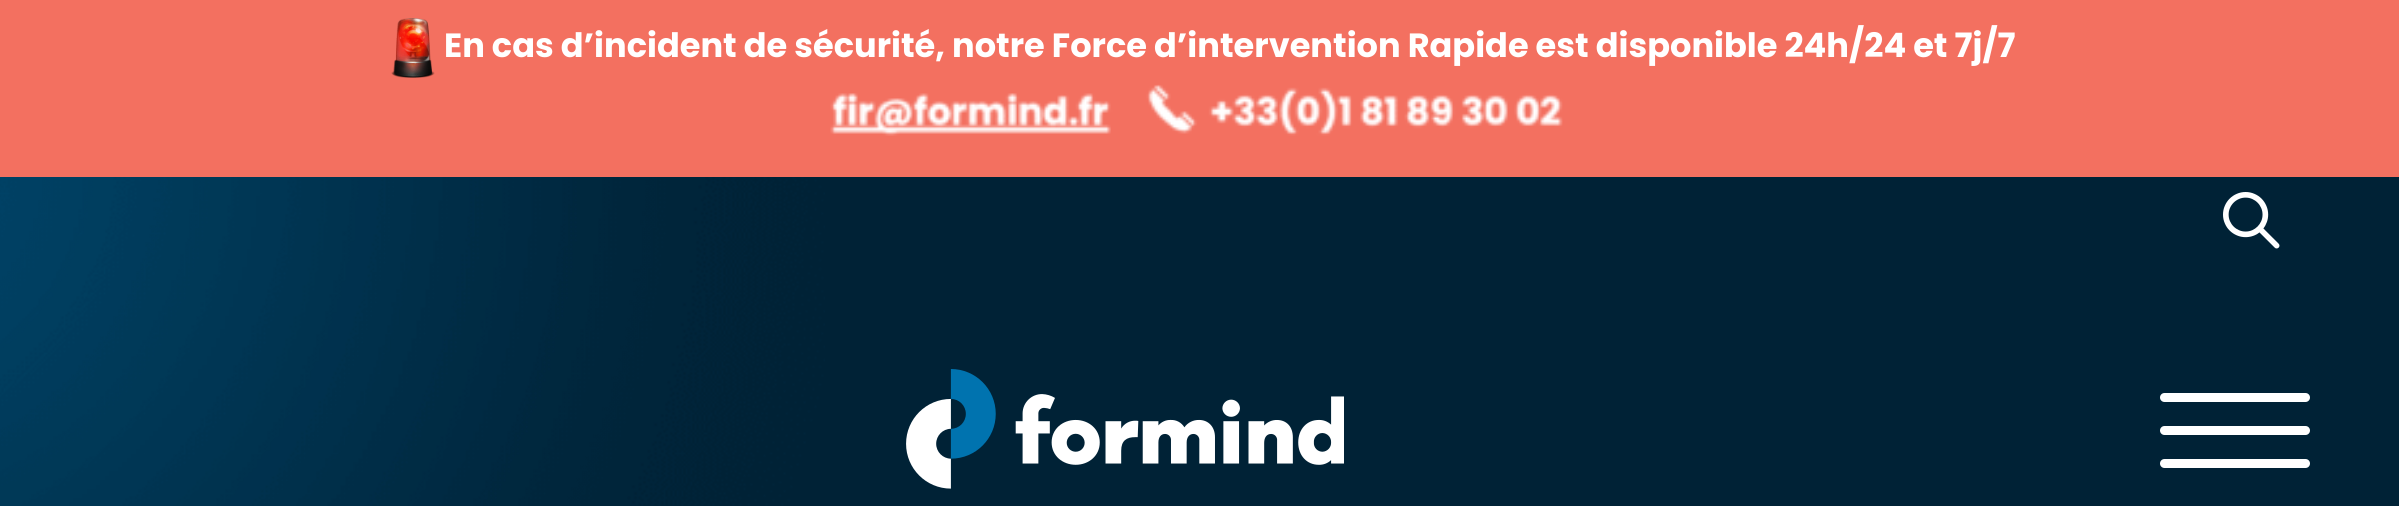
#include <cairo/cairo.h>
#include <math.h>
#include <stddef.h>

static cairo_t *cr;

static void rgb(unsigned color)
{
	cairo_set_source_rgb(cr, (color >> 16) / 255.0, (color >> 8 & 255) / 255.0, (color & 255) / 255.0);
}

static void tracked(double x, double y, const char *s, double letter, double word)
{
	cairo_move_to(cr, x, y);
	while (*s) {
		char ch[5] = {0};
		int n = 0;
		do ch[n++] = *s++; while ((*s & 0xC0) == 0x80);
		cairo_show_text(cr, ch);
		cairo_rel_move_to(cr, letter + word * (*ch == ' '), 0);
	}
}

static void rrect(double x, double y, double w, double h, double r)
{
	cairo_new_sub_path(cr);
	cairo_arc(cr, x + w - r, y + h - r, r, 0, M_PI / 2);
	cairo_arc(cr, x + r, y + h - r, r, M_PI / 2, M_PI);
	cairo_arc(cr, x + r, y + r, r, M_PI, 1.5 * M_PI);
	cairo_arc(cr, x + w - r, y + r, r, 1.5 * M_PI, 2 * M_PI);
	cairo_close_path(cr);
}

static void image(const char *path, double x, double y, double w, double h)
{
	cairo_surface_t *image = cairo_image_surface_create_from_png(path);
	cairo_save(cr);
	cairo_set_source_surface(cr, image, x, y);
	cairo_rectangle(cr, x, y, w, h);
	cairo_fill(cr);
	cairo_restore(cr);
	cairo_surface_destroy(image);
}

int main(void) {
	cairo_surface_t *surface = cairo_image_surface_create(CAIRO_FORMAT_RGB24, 2399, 506);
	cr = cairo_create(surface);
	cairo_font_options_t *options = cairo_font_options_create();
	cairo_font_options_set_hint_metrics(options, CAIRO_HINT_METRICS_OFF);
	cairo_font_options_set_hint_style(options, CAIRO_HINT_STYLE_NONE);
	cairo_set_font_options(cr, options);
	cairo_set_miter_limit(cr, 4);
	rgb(0x002236);
	cairo_paint(cr);
	rgb(0xf37060);
	cairo_rectangle(cr, 0, 0, 2399, 177);
	cairo_fill(cr);
	image("img/1.png", 391, 18, 44, 60);
	image("img/2.png", 830, 84, 733, 52);
	image("img/3.png", 2223, 192, 57, 57);
	image("img/4.png", 906, 369, 438, 120);
	rgb(0xffffff);
	rrect(2160, 393, 150, 9, 4.5);
	cairo_fill(cr);
	rrect(2160, 426, 150, 9, 4.5);
	cairo_fill(cr);
	rrect(2160, 459, 150, 9, 4.5);
	cairo_fill(cr);
	image("img/5.png", 0, 177, 825, 329);
	cairo_select_font_face(cr, "Poppins", CAIRO_FONT_SLANT_NORMAL, CAIRO_FONT_WEIGHT_BOLD);
	cairo_set_font_size(cr, 33.6);
	tracked(444, 57, "En cas d’incident de sécurité, notre Force d’intervention Rapide est disponible 24h/24 et 7j/7", 0, -0.1);
	cairo_surface_write_to_png(surface, "page.png");
	cairo_font_options_destroy(options);
	cairo_destroy(cr);
	cairo_surface_destroy(surface);
	return 0;
}
